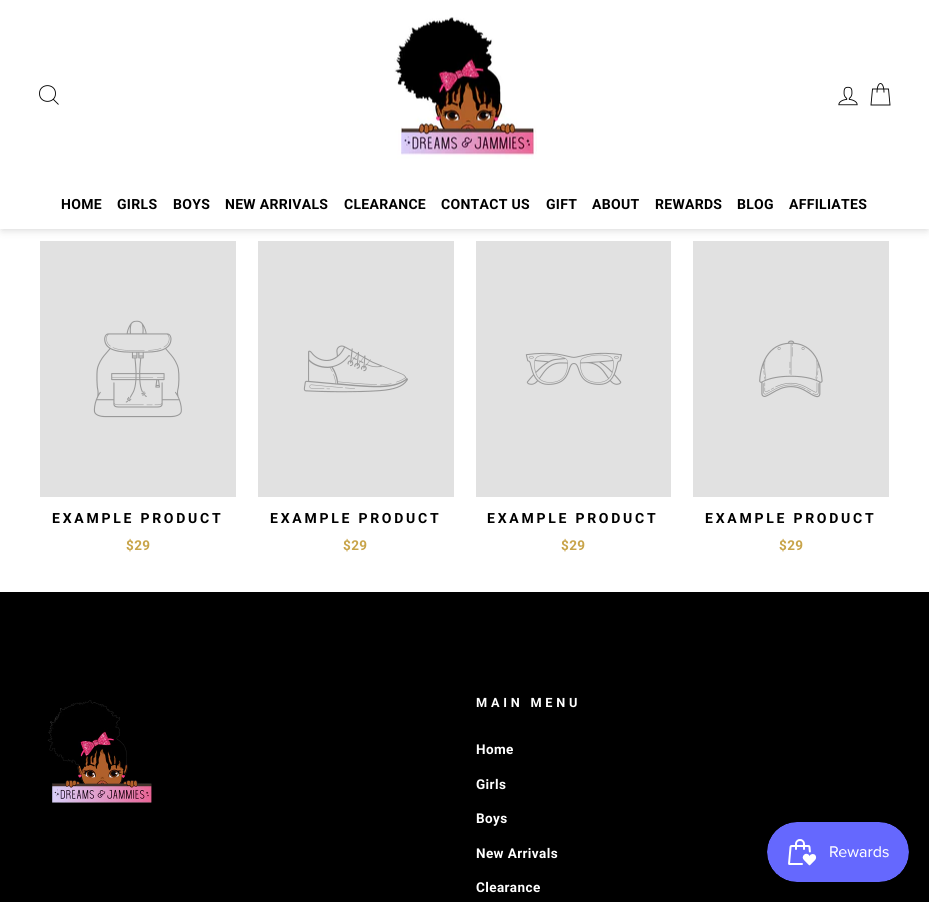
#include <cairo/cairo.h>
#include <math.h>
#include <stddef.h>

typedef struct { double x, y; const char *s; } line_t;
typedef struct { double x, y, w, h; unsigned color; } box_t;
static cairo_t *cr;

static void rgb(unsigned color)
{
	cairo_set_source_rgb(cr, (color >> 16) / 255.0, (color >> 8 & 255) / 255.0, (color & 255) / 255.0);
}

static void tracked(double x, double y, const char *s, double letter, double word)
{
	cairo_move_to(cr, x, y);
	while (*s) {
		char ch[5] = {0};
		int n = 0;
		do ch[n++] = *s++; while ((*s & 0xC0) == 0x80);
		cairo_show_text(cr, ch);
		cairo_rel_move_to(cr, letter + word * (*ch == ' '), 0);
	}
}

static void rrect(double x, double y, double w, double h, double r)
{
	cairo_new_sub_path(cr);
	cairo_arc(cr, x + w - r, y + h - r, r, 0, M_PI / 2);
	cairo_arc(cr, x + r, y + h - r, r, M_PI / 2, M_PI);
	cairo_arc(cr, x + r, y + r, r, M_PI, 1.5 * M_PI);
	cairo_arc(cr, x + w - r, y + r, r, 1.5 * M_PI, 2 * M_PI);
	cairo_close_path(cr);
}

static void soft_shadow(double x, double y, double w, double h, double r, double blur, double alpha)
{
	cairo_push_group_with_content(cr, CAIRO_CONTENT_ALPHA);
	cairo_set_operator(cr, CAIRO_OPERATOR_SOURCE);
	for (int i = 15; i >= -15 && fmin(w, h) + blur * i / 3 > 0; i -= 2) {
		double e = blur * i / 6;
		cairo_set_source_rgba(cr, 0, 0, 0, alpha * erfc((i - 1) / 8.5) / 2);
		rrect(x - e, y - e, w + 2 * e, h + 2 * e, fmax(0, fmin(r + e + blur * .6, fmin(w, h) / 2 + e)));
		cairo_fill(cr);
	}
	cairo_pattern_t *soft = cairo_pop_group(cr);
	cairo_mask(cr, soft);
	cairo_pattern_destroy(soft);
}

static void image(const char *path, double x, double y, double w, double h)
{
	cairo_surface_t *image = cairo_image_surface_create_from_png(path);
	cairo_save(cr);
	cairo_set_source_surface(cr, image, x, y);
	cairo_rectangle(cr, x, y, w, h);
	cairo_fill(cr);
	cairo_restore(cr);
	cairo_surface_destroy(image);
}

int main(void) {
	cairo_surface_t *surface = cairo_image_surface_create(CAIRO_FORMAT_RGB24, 929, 902);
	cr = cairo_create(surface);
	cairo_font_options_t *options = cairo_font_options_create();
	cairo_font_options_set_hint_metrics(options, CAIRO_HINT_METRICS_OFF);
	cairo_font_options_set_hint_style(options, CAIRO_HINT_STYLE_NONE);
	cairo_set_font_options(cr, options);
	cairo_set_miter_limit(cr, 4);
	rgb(0xffffff);
	cairo_paint(cr);
	{
		static const box_t items[] = {
			{40, 241, 196, 256, 0xe1e1e1},
			{258, 241, 196, 256, 0xe1e1e1},
			{476, 241, 195, 256, 0xe1e1e1},
			{693, 241, 196, 256, 0xe1e1e1},
		};
		for (size_t i = 0; i < sizeof items / sizeof *items; i++) {
			rgb(items[i].color);
			cairo_rectangle(cr, items[i].x, items[i].y, items[i].w, items[i].h);
			cairo_fill(cr);
		}
	}
	rgb(0x000000);
	soft_shadow(2, 4, 925, 225, 0, 4.5, 0.2);
	rgb(0xffffff);
	cairo_rectangle(cr, 0, 0, 929, 229);
	cairo_fill(cr);
	cairo_new_path(cr);
	cairo_move_to(cr, 55.5, 93.5);
	cairo_curve_to(cr, 55.5, 104, 39.5, 104, 39.5, 93.5);
	cairo_curve_to(cr, 39.5, 83, 55.5, 83, 55.5, 93.5);
	cairo_close_path(cr);
	cairo_move_to(cr, 58.5, 104.5);
	cairo_line_to(cr, 53.5, 99.5);
	rgb(0x000000);
	cairo_set_line_width(cr, 0.9);
	cairo_stroke(cr);
	image("img/1.png", 394, 17, 143, 142);
	image("img/2.png", 838, 86, 20, 20);
	cairo_new_path(cr);
	cairo_move_to(cr, 877, 92.5);
	cairo_curve_to(cr, 877, 80.5, 884, 80.5, 884, 92.5);
	cairo_move_to(cr, 872.5, 89);
	cairo_line_to(cr, 888.5, 89);
	cairo_line_to(cr, 890, 105);
	cairo_line_to(cr, 871, 105);
	cairo_close_path(cr);
	cairo_stroke(cr);
	image("img/3.png", 93, 320, 89, 98);
	image("img/4.png", 303, 345, 105, 48);
	image("img/5.png", 525, 352, 97, 33);
	image("img/6.png", 759, 340, 64, 58);
	cairo_rectangle(cr, 0, 592, 929, 310);
	cairo_fill(cr);
	image("img/7.png", 47, 700, 105, 103);
	image("img/8.png", 767, 822, 142, 60);
	cairo_select_font_face(cr, "Roboto", CAIRO_FONT_SLANT_NORMAL, CAIRO_FONT_WEIGHT_BOLD);
	cairo_set_font_size(cr, 14);
	{
		static const line_t items[] = {
			{61, 209, "HOME"},
			{117, 209, "GIRLS"},
			{173, 209, "BOYS"},
			{225, 209, "NEW ARRIVALS"},
			{344, 209, "CLEARANCE"},
			{441, 209, "CONTACT US"},
			{546, 209, "GIFT"},
			{592, 209, "ABOUT"},
			{655, 209, "REWARDS"},
			{737, 209, "BLOG"},
			{789, 209, "AFFILIATES"},
		};
		for (size_t i = 0; i < sizeof items / sizeof *items; i++) {
			tracked(items[i].x, items[i].y, items[i].s, 0.3, 0);
		}
	}
	tracked(52, 523, "EXAMPLE PRODUCT", 2.75, 0);
	cairo_set_font_size(cr, 13.5);
	rgb(0xc8a449);
	tracked(126, 550, "$29", 0.4, 0);
	cairo_set_font_size(cr, 14);
	rgb(0x000000);
	tracked(270, 523, "EXAMPLE PRODUCT", 2.75, 0);
	cairo_set_font_size(cr, 13.5);
	rgb(0xc8a449);
	tracked(343, 550, "$29", 0.4, 0);
	cairo_set_font_size(cr, 14);
	rgb(0x000000);
	tracked(487, 523, "EXAMPLE PRODUCT", 2.75, 0);
	cairo_set_font_size(cr, 13.5);
	rgb(0xc8a449);
	tracked(561, 550, "$29", 0.4, 0);
	cairo_set_font_size(cr, 14);
	rgb(0x000000);
	tracked(705, 523, "EXAMPLE PRODUCT", 2.75, 0);
	cairo_set_font_size(cr, 13.5);
	rgb(0xc8a449);
	tracked(779, 550, "$29", 0.4, 0);
	cairo_set_font_size(cr, 12.75);
	rgb(0xffffff);
	tracked(476, 707, "MAIN MENU", 3.75, 0);
	cairo_set_font_size(cr, 13.5);
	{
		static const line_t items[] = {
			{476, 754, "Home"},
			{476, 789, "Girls"},
			{476, 823, "Boys"},
			{476, 858, "New Arrivals"},
			{476, 892, "Clearance"},
		};
		for (size_t i = 0; i < sizeof items / sizeof *items; i++) {
			tracked(items[i].x, items[i].y, items[i].s, 0.4, 0);
		}
	}
	cairo_surface_write_to_png(surface, "page.png");
	cairo_font_options_destroy(options);
	cairo_destroy(cr);
	cairo_surface_destroy(surface);
	return 0;
}
